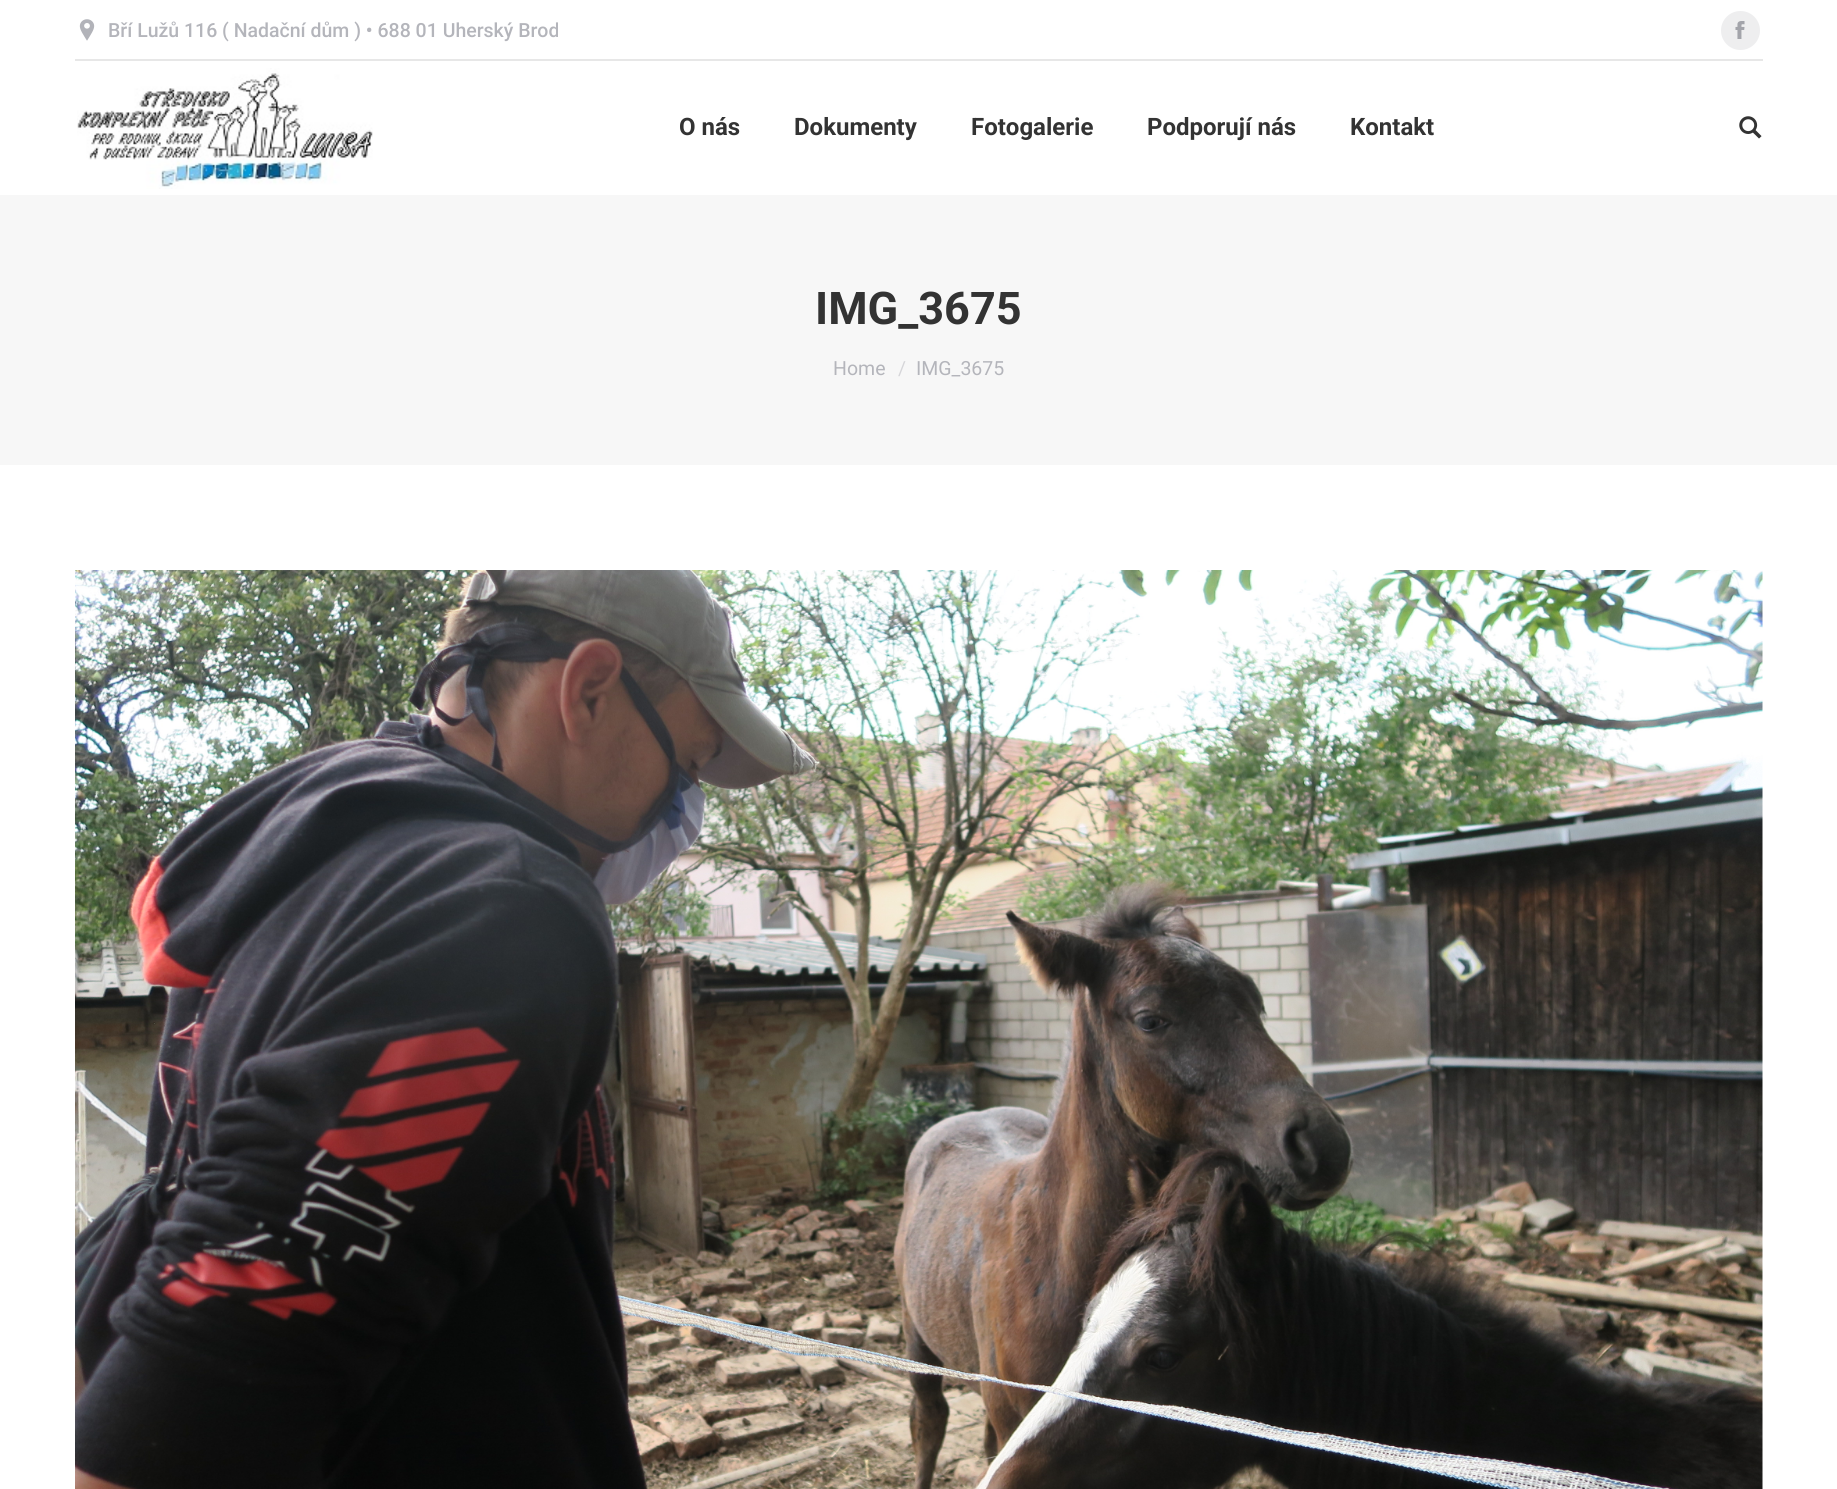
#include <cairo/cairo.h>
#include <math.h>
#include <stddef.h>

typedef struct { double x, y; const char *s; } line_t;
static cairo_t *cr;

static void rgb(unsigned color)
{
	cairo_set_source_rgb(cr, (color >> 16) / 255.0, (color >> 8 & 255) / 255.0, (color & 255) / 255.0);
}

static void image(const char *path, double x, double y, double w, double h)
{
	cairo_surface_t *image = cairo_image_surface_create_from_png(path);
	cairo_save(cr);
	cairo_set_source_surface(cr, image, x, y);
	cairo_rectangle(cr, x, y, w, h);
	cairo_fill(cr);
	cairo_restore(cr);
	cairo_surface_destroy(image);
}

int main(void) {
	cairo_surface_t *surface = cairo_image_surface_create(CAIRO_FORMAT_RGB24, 1837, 1489);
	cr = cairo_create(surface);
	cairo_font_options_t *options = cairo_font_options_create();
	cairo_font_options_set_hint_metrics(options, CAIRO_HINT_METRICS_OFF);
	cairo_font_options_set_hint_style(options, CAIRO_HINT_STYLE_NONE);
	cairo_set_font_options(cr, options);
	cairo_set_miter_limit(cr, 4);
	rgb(0xffffff);
	cairo_paint(cr);
	image("img/1.png", 79, 19, 16, 22);
	rgb(0xeeeeef);
	cairo_arc(cr, 1740.5, 30.5, 19.5, 0, 2 * M_PI);
	cairo_fill(cr);
	image("img/2.png", 1735, 21, 10, 18);
	rgb(0xe7e7e7);
	cairo_rectangle(cr, 75, 59, 1688, 2);
	cairo_fill(cr);
	image("img/3.png", 77, 68, 296, 121);
	image("img/4.png", 1739, 116, 23, 23);
	rgb(0xf7f7f7);
	cairo_rectangle(cr, 0, 195, 1837, 270);
	cairo_fill(cr);
	image("img/5.png", 75, 570, 1688, 919);
	cairo_select_font_face(cr, "Roboto Medium", CAIRO_FONT_SLANT_NORMAL, CAIRO_FONT_WEIGHT_NORMAL);
	cairo_set_font_size(cr, 19.5);
	rgb(0xb4b5bb);
	cairo_move_to(cr, 108, 37);
	cairo_show_text(cr, "Bří Lužů 116 ( Nadační dům ) • 688 01 Uherský Brod");
	cairo_select_font_face(cr, "Roboto", CAIRO_FONT_SLANT_NORMAL, CAIRO_FONT_WEIGHT_BOLD);
	cairo_set_font_size(cr, 24);
	rgb(0x333333);
	{
		static const line_t items[] = {
			{679, 135, "O nás"},
			{794, 135, "Dokumenty"},
			{971, 135, "Fotogalerie"},
			{1147, 135, "Podporují nás"},
			{1350, 135, "Kontakt"},
		};
		for (size_t i = 0; i < sizeof items / sizeof *items; i++) {
			cairo_move_to(cr, items[i].x, items[i].y);
			cairo_show_text(cr, items[i].s);
		}
	}
	cairo_set_font_size(cr, 45);
	cairo_move_to(cr, 815, 324);
	cairo_show_text(cr, "IMG_3675");
	cairo_select_font_face(cr, "Roboto", CAIRO_FONT_SLANT_NORMAL, CAIRO_FONT_WEIGHT_NORMAL);
	cairo_set_font_size(cr, 19.5);
	rgb(0xb4b5bb);
	cairo_move_to(cr, 833, 375);
	cairo_show_text(cr, "Home");
	rgb(0xd6d6d9);
	cairo_move_to(cr, 898, 375);
	cairo_show_text(cr, "/");
	rgb(0xb4b5bb);
	cairo_move_to(cr, 916, 375);
	cairo_show_text(cr, "IMG_3675");
	cairo_surface_write_to_png(surface, "page.png");
	cairo_font_options_destroy(options);
	cairo_destroy(cr);
	cairo_surface_destroy(surface);
	return 0;
}
